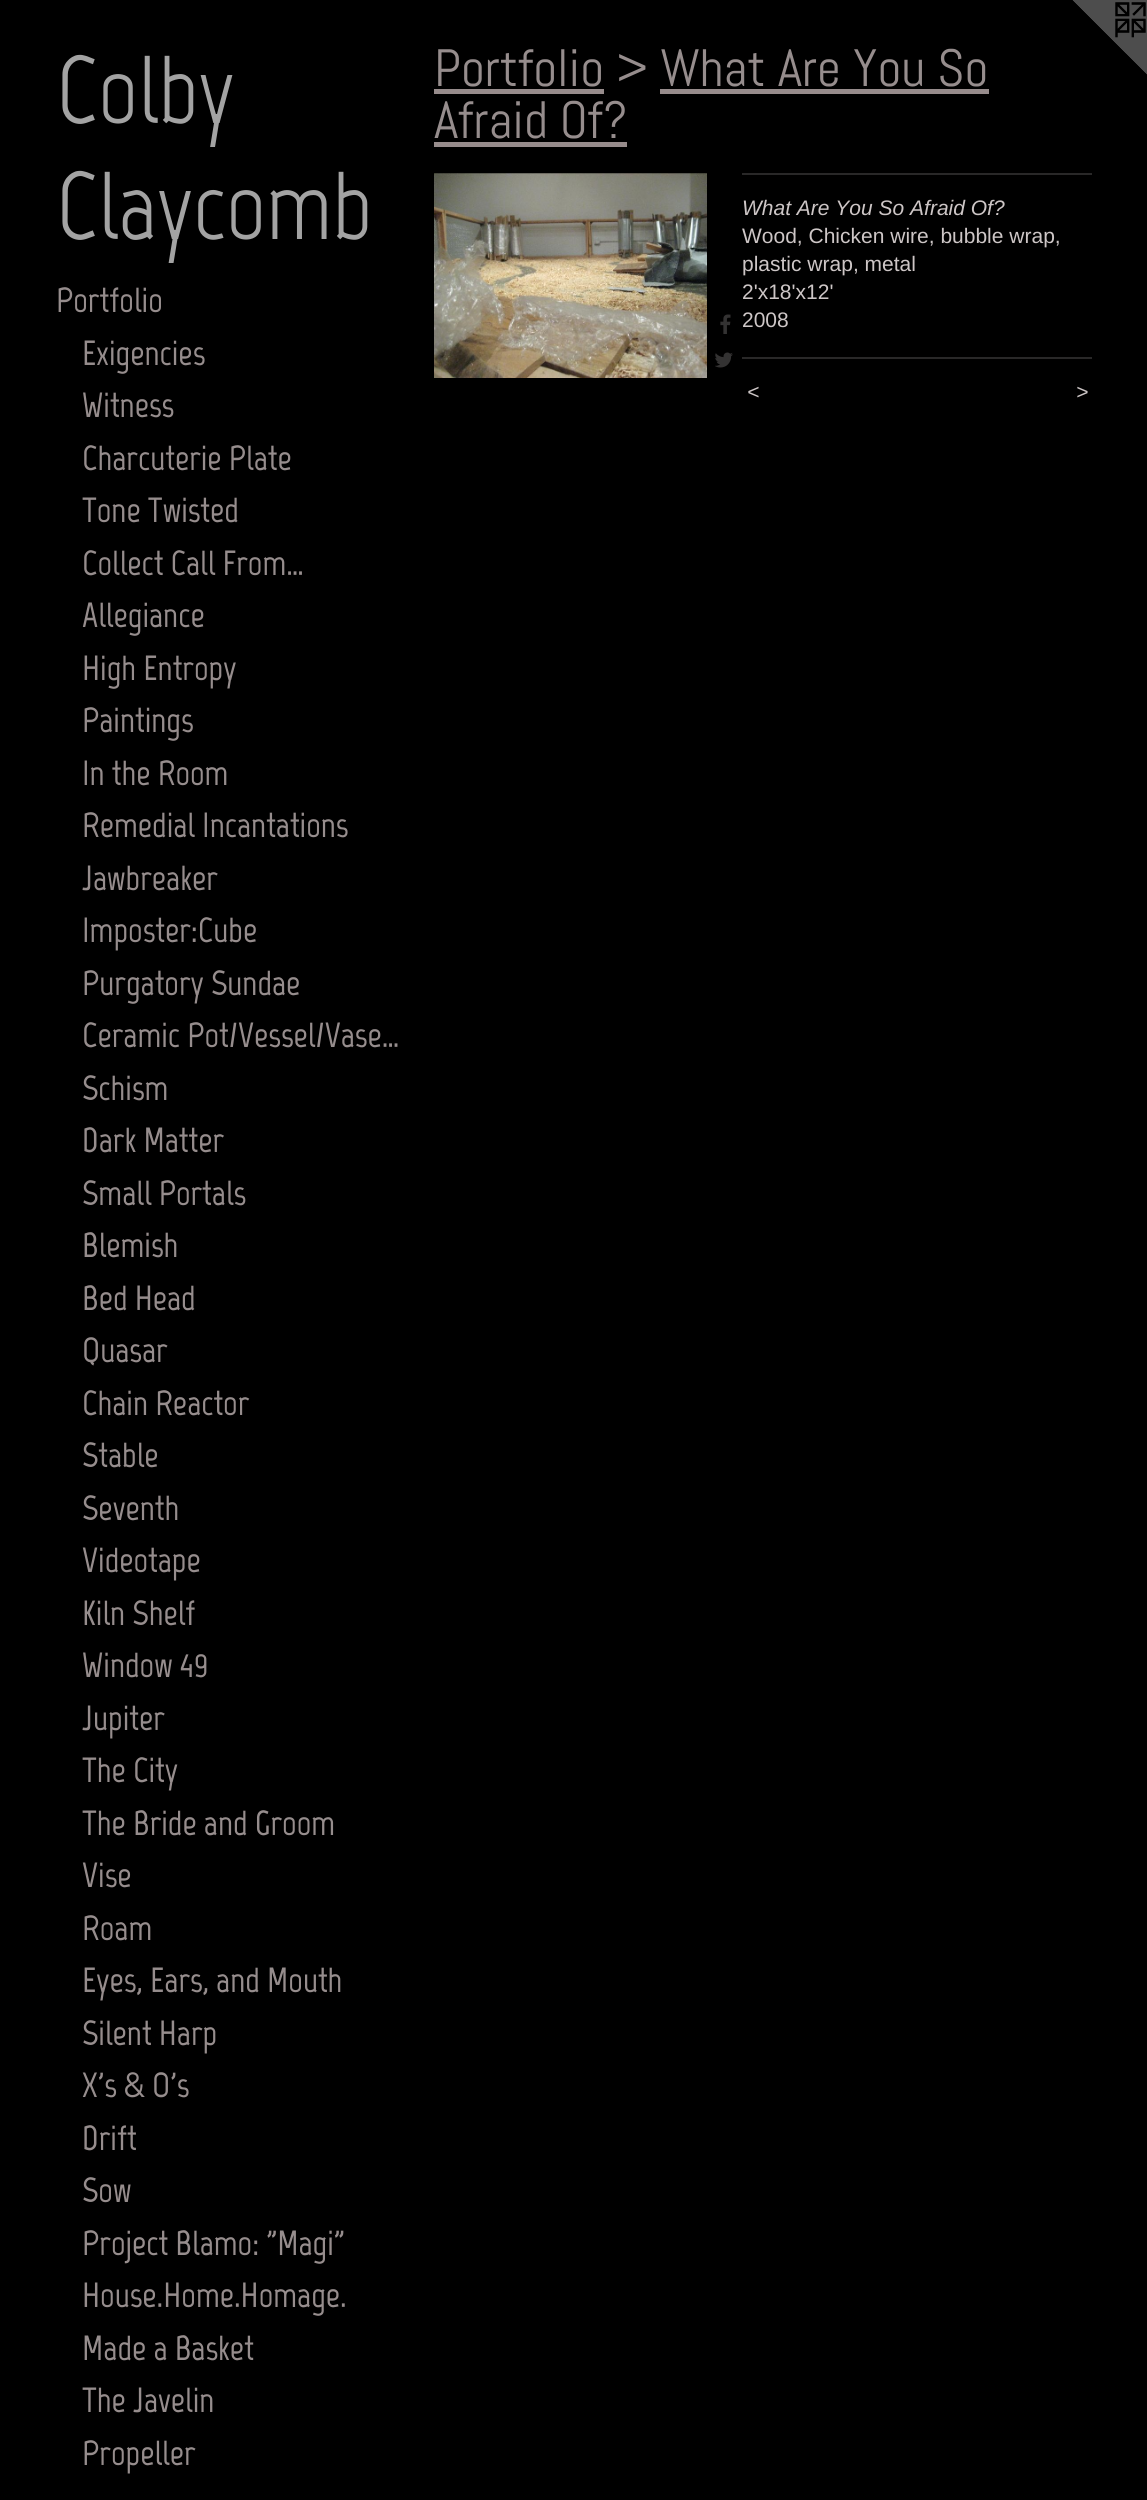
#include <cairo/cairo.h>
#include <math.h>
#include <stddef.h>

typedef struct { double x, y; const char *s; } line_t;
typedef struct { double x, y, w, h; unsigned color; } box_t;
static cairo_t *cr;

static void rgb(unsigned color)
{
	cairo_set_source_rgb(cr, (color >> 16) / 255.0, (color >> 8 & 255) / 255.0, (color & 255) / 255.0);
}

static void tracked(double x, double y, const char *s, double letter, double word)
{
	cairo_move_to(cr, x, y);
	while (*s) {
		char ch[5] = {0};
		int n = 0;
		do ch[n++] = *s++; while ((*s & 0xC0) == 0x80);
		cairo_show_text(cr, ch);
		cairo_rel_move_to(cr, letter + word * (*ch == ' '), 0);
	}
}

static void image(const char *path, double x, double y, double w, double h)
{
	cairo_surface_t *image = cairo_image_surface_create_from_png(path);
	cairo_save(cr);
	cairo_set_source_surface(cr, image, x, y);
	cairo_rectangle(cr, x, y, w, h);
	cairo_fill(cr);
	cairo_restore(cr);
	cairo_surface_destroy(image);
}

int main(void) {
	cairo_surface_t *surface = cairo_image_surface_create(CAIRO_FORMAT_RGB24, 1147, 2500);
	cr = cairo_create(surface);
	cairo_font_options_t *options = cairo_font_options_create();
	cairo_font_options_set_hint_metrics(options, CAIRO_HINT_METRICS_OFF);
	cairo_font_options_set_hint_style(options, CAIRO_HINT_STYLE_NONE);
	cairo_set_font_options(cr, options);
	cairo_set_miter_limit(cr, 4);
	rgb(0x000000);
	cairo_paint(cr);
	image("img/1.png", 1072, 0, 75, 75);
	{
		static const box_t items[] = {
			{434, 89, 170, 5, 0x978c8c},
			{660, 89, 329, 5, 0x978c8c},
			{434, 142, 193, 5, 0x978c8c},
		};
		for (size_t i = 0; i < sizeof items / sizeof *items; i++) {
			rgb(items[i].color);
			cairo_rectangle(cr, items[i].x, items[i].y, items[i].w, items[i].h);
			cairo_fill(cr);
		}
	}
	image("img/2.png", 434, 173, 273, 205);
	image("img/3.png", 720, 314, 11, 20);
	image("img/4.png", 715, 352, 18, 16);
	rgb(0x292828);
	cairo_rectangle(cr, 742, 173, 350, 2);
	cairo_fill(cr);
	cairo_rectangle(cr, 742, 357, 350, 2);
	cairo_fill(cr);
	cairo_select_font_face(cr, "Marvel", CAIRO_FONT_SLANT_NORMAL, CAIRO_FONT_WEIGHT_NORMAL);
	cairo_set_font_size(cr, 96);
	rgb(0xa3a3a3);
	cairo_move_to(cr, 56, 123);
	cairo_show_text(cr, "Colby");
	cairo_move_to(cr, 56, 239);
	cairo_show_text(cr, "Claycomb");
	cairo_select_font_face(cr, "Marvel", CAIRO_FONT_SLANT_NORMAL, CAIRO_FONT_WEIGHT_BOLD);
	cairo_set_font_size(cr, 35);
	rgb(0x968d8d);
	{
		static const line_t items[] = {
			{56, 312, "Portfolio"},
			{82, 365, "Exigencies"},
			{82, 417, "Witness"},
			{82, 470, "Charcuterie Plate"},
			{82, 522, "Tone Twisted"},
			{82, 575, "Collect Call From…"},
			{82, 627, "Allegiance"},
			{82, 680, "High Entropy"},
			{82, 732, "Paintings"},
			{82, 785, "In the Room"},
			{82, 837, "Remedial Incantations"},
			{82, 890, "Jawbreaker"},
			{82, 942, "Imposter:Cube"},
			{82, 995, "Purgatory Sundae"},
			{82, 1047, "Ceramic Pot/Vessel/Vase…"},
			{82, 1100, "Schism"},
			{82, 1152, "Dark Matter"},
			{82, 1205, "Small Portals"},
			{82, 1257, "Blemish"},
			{82, 1310, "Bed Head"},
			{82, 1362, "Quasar"},
			{82, 1415, "Chain Reactor"},
			{82, 1467, "Stable"},
			{82, 1520, "Seventh"},
			{82, 1572, "Videotape"},
			{82, 1625, "Kiln Shelf"},
			{82, 1677, "Window 49"},
			{82, 1730, "Jupiter"},
			{82, 1782, "The City"},
			{82, 1835, "The Bride and Groom"},
			{82, 1887, "Vise"},
			{82, 1940, "Roam"},
			{82, 1992, "Eyes, Ears, and Mouth"},
			{82, 2045, "Silent Harp"},
			{82, 2097, "X's & O's"},
			{82, 2150, "Drift"},
			{82, 2202, "Sow"},
			{82, 2255, "Project Blamo: \"Magi\""},
			{82, 2307, "House.Home.Homage."},
			{82, 2360, "Made a Basket"},
			{82, 2412, "The Javelin"},
			{82, 2465, "Propeller"},
		};
		for (size_t i = 0; i < sizeof items / sizeof *items; i++) {
			cairo_move_to(cr, items[i].x, items[i].y);
			cairo_show_text(cr, items[i].s);
		}
	}
	cairo_select_font_face(cr, "Abel", CAIRO_FONT_SLANT_NORMAL, CAIRO_FONT_WEIGHT_NORMAL);
	cairo_set_font_size(cr, 52.5);
	cairo_move_to(cr, 434, 86);
	cairo_show_text(cr, "Portfolio > What Are You So");
	cairo_move_to(cr, 434, 138);
	cairo_show_text(cr, "Afraid Of?");
	cairo_select_font_face(cr, "Liberation Sans", CAIRO_FONT_SLANT_ITALIC, CAIRO_FONT_WEIGHT_NORMAL);
	cairo_set_font_size(cr, 21);
	rgb(0xcdc6c6);
	cairo_move_to(cr, 742, 215);
	cairo_show_text(cr, "What Are You So Afraid Of?");
	cairo_select_font_face(cr, "Liberation Sans", CAIRO_FONT_SLANT_NORMAL, CAIRO_FONT_WEIGHT_NORMAL);
	{
		static const line_t items[] = {
			{742, 243, "Wood, Chicken wire, bubble wrap,"},
			{742, 271, "plastic wrap, metal"},
			{742, 299, "2'x18'x12'"},
			{742, 327, "2008"},
		};
		for (size_t i = 0; i < sizeof items / sizeof *items; i++) {
			cairo_move_to(cr, items[i].x, items[i].y);
			cairo_show_text(cr, items[i].s);
		}
	}
	cairo_select_font_face(cr, "Liberation Sans", CAIRO_FONT_SLANT_ITALIC, CAIRO_FONT_WEIGHT_NORMAL);
	tracked(747, 399, "<", 2, 0);
	tracked(1076, 399, ">", 2, 0);
	cairo_surface_write_to_png(surface, "page.png");
	cairo_font_options_destroy(options);
	cairo_destroy(cr);
	cairo_surface_destroy(surface);
	return 0;
}
